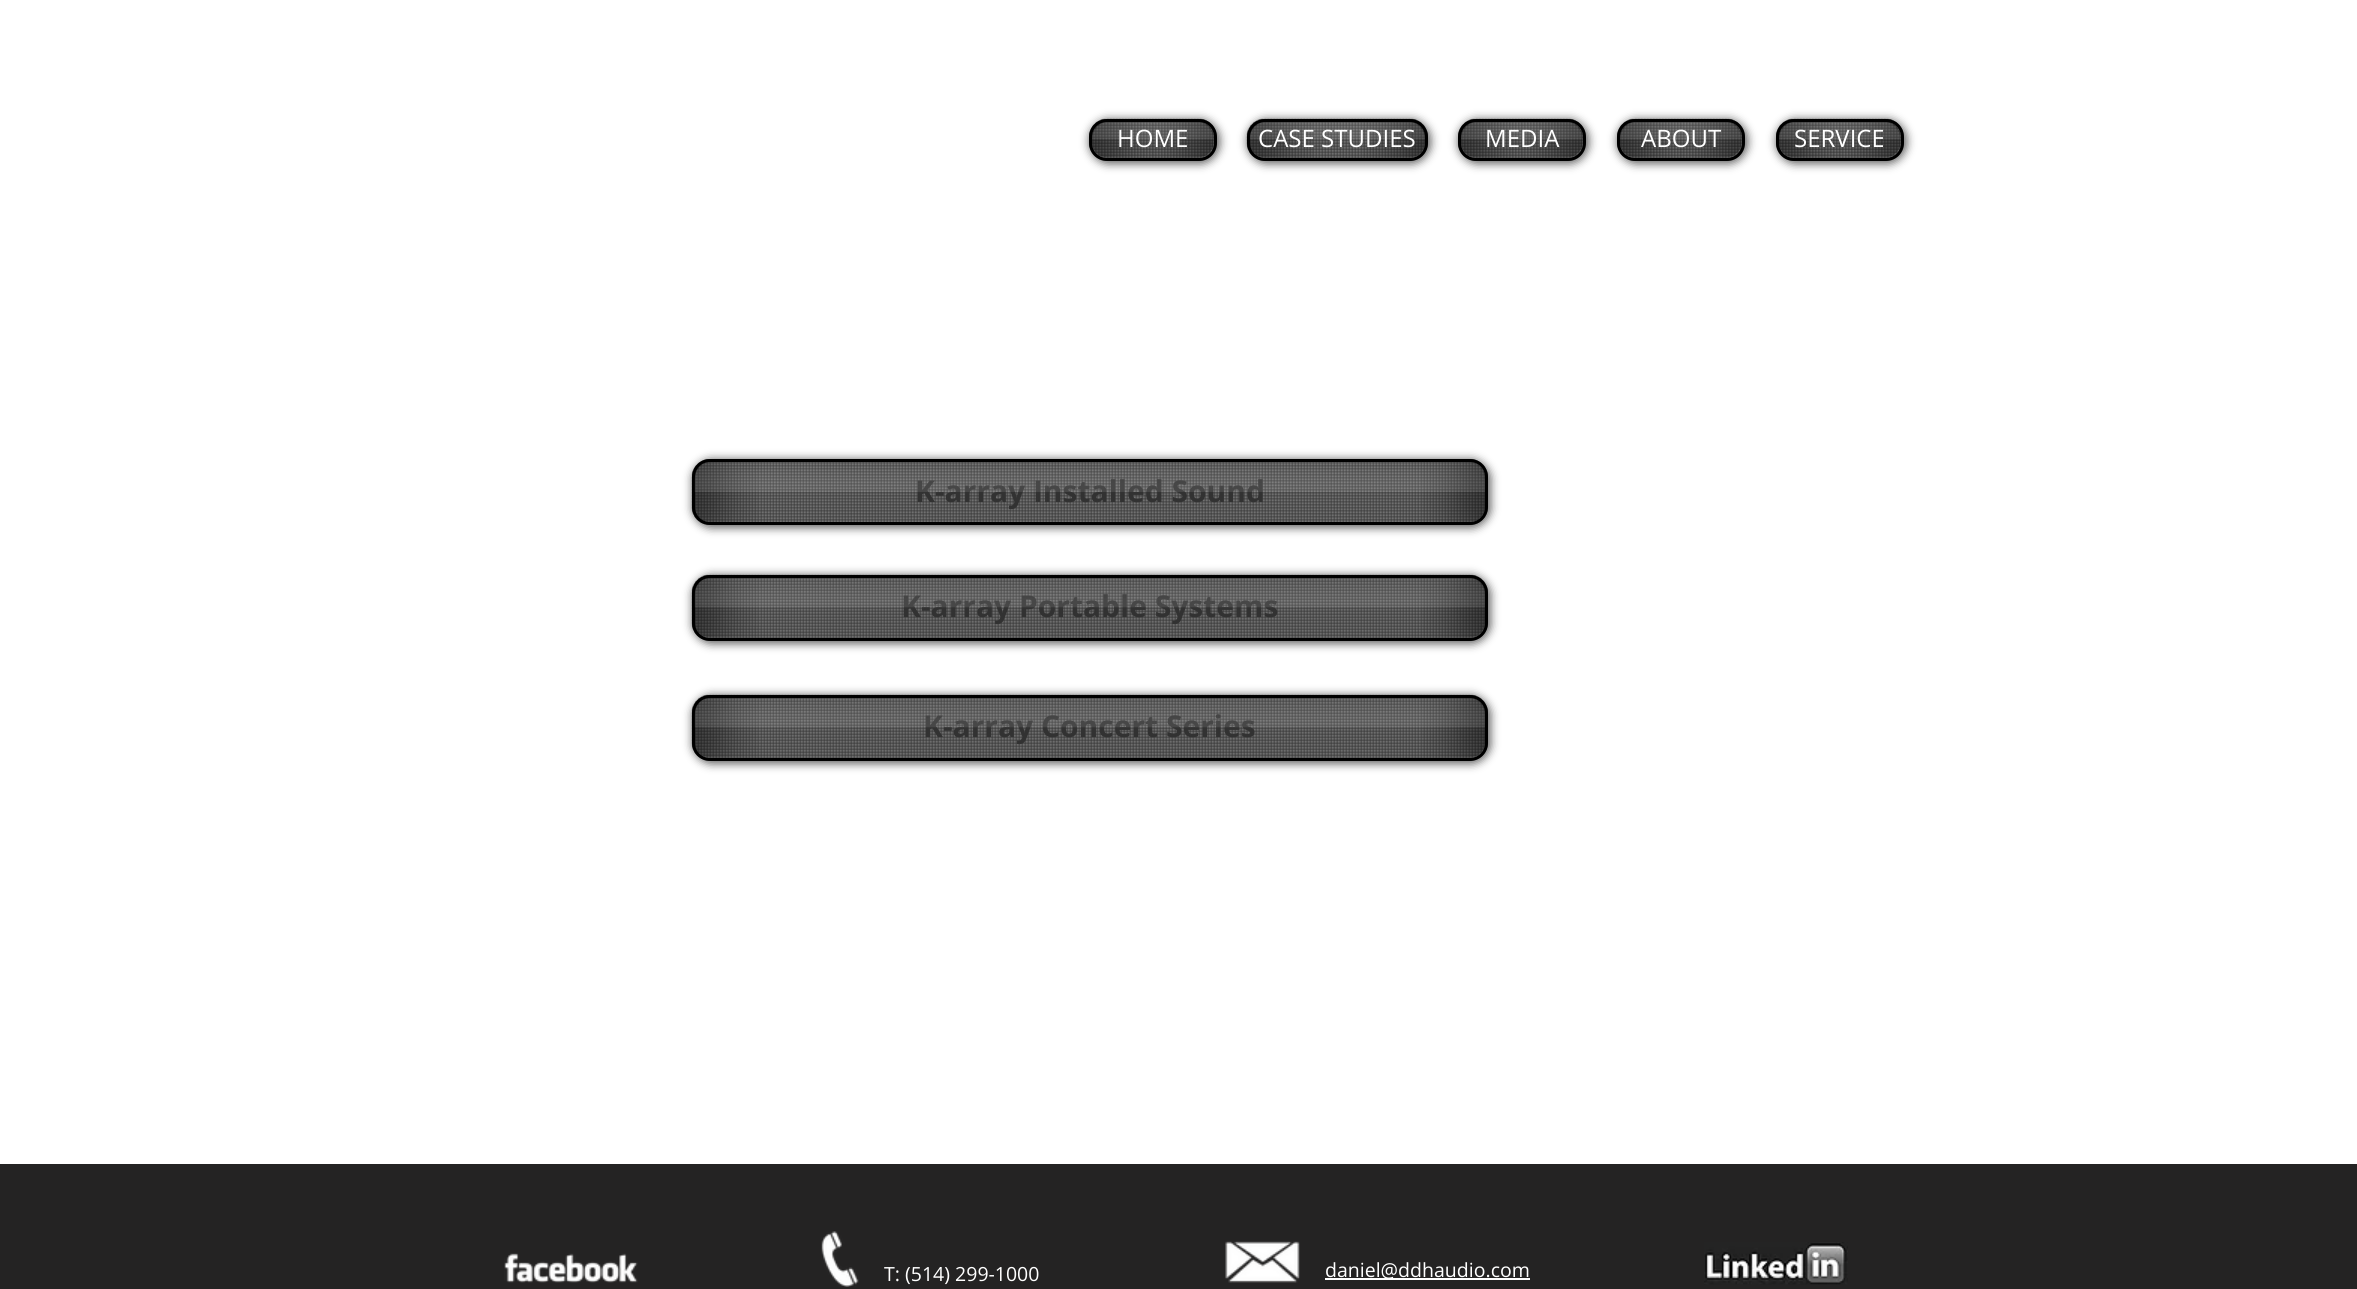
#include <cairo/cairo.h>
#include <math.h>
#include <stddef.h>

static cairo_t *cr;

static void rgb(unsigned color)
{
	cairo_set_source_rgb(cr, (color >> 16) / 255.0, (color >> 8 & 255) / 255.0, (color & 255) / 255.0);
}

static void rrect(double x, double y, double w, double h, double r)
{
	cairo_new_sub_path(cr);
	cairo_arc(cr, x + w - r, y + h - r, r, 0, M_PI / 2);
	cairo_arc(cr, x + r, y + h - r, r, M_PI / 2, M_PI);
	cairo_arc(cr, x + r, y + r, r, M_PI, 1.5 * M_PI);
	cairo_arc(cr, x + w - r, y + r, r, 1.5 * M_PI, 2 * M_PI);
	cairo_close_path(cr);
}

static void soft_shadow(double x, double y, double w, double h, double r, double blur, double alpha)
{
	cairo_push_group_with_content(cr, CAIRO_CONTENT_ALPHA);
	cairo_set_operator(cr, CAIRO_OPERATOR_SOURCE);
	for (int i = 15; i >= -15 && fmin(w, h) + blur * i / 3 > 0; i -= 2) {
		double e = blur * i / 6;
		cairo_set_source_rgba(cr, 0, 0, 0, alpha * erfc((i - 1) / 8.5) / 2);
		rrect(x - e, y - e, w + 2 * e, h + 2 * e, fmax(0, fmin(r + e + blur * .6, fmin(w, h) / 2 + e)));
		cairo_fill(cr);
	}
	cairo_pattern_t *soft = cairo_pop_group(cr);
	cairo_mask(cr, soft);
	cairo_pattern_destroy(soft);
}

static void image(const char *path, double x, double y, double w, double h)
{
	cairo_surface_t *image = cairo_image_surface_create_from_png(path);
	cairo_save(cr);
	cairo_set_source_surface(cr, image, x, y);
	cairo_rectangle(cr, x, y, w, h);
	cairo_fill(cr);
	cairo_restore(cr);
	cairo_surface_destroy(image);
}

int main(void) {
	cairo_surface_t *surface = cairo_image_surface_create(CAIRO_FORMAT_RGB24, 2357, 1289);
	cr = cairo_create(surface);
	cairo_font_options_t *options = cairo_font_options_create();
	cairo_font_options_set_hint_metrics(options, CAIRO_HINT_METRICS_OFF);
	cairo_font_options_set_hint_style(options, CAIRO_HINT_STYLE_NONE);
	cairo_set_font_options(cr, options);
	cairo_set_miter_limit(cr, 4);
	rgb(0xffffff);
	cairo_paint(cr);
	rgb(0x000000);
	soft_shadow(1089, 119, 131, 45, 20, 4.5, 0.6);
	rgb(0x7d7d7d);
	rrect(1089, 119, 128, 42, 18);
	cairo_fill(cr);
	image("img/1.png", 1089, 118, 128, 43);
	rrect(1090.5, 120.5, 125, 39, 16.5);
	rgb(0x000000);
	cairo_set_line_width(cr, 3);
	cairo_stroke(cr);
	image("img/2.png", 1092, 122, 63, 36);
	image("img/4.png", 1151, 122, 63, 36);
	rgb(0x000000);
	soft_shadow(1247, 119, 184, 45, 20, 4.5, 0.6);
	rgb(0x7d7d7d);
	rrect(1247, 119, 181, 42, 18);
	cairo_fill(cr);
	image("img/5.png", 1246, 118, 182, 43);
	rrect(1248.5, 120.5, 178, 39, 16.5);
	rgb(0x000000);
	cairo_stroke(cr);
	image("img/6.png", 1250, 122, 63, 36);
	image("img/8.png", 1362, 122, 63, 36);
	rgb(0x000000);
	soft_shadow(1458, 119, 131, 45, 20, 4.5, 0.6);
	rgb(0x7d7d7d);
	rrect(1458, 119, 128, 42, 18);
	cairo_fill(cr);
	image("img/9.png", 1458, 118, 128, 43);
	rrect(1459.5, 120.5, 125, 39, 16.5);
	rgb(0x000000);
	cairo_stroke(cr);
	image("img/10.png", 1461, 122, 63, 36);
	image("img/12.png", 1520, 122, 63, 36);
	rgb(0x000000);
	soft_shadow(1617, 119, 131, 45, 20, 4.5, 0.6);
	rgb(0x7d7d7d);
	rrect(1617, 119, 128, 42, 18);
	cairo_fill(cr);
	image("img/13.png", 1617, 118, 128, 43);
	rrect(1618.5, 120.5, 125, 39, 16.5);
	rgb(0x000000);
	cairo_stroke(cr);
	image("img/14.png", 1620, 122, 63, 36);
	image("img/16.png", 1679, 122, 63, 36);
	rgb(0x000000);
	soft_shadow(1776, 119, 131, 45, 20, 4.5, 0.6);
	rgb(0x7d7d7d);
	rrect(1776, 119, 128, 42, 18);
	cairo_fill(cr);
	image("img/17.png", 1776, 118, 128, 43);
	rrect(1777.5, 120.5, 125, 39, 16.5);
	rgb(0x000000);
	cairo_stroke(cr);
	image("img/18.png", 1779, 122, 63, 36);
	image("img/16.png", 1838, 122, 63, 36);
	rgb(0x000000);
	soft_shadow(692, 459, 799, 69, 20, 4.5, 0.6);
	rgb(0x7d7d7d);
	rrect(692, 459, 796, 66, 18);
	cairo_fill(cr);
	image("img/20.png", 691, 459, 797, 66);
	rrect(693.5, 460.5, 793, 63, 16.5);
	rgb(0x000000);
	cairo_stroke(cr);
	image("img/22.png", 695, 462, 63, 60);
	image("img/23.png", 1422, 462, 63, 60);
	rgb(0x000000);
	soft_shadow(692, 575, 799, 69, 20, 4.5, 0.6);
	rgb(0x7d7d7d);
	rrect(692, 575, 796, 66, 18);
	cairo_fill(cr);
	image("img/24.png", 691, 574, 797, 67);
	rrect(693.5, 576.5, 793, 63, 16.5);
	rgb(0x000000);
	cairo_stroke(cr);
	image("img/26.png", 695, 578, 63, 60);
	image("img/27.png", 1422, 578, 63, 60);
	rgb(0x000000);
	soft_shadow(692, 695, 799, 69, 20, 4.5, 0.6);
	rgb(0x7d7d7d);
	rrect(692, 695, 796, 66, 18);
	cairo_fill(cr);
	image("img/24.png", 691, 694, 797, 67);
	rrect(693.5, 696.5, 793, 63, 16.5);
	rgb(0x000000);
	cairo_stroke(cr);
	image("img/26.png", 695, 698, 63, 60);
	image("img/27.png", 1422, 698, 63, 60);
	rgb(0x242323);
	cairo_rectangle(cr, 0, 1164, 2357, 125);
	cairo_fill(cr);
	image("img/29.png", 504, 1253, 134, 30);
	image("img/30.png", 821, 1231, 38, 56);
	image("img/31.png", 1225, 1241, 75, 42);
	rgb(0xffffff);
	cairo_rectangle(cr, 1325, 1278, 205, 2);
	cairo_fill(cr);
	image("img/32.png", 1704, 1242, 144, 43);
	cairo_select_font_face(cr, "Open Sans", CAIRO_FONT_SLANT_NORMAL, CAIRO_FONT_WEIGHT_NORMAL);
	cairo_set_font_size(cr, 24);
	cairo_move_to(cr, 1117, 147);
	cairo_show_text(cr, "HOME");
	image("img/3.png", 1092, 122, 121, 18);
	cairo_move_to(cr, 1258, 147);
	cairo_show_text(cr, "CASE STUDIES");
	image("img/7.png", 1250, 122, 175, 18);
	cairo_move_to(cr, 1485, 147);
	cairo_show_text(cr, "MEDIA");
	image("img/11.png", 1461, 122, 121, 18);
	cairo_move_to(cr, 1641, 147);
	cairo_show_text(cr, "ABOUT");
	image("img/15.png", 1620, 122, 121, 18);
	cairo_move_to(cr, 1794, 147);
	cairo_show_text(cr, "SERVICE");
	image("img/19.png", 1779, 122, 121, 18);
	cairo_select_font_face(cr, "Open Sans", CAIRO_FONT_SLANT_NORMAL, CAIRO_FONT_WEIGHT_BOLD);
	cairo_set_font_size(cr, 30);
	rgb(0x323232);
	cairo_move_to(cr, 915, 502);
	cairo_show_text(cr, "K-array Installed Sound");
	image("img/21.png", 694, 462, 791, 30);
	cairo_move_to(cr, 901, 617);
	cairo_show_text(cr, "K-array Portable Systems");
	image("img/25.png", 694, 578, 791, 30);
	cairo_move_to(cr, 923, 737);
	cairo_show_text(cr, "K-array Concert Series");
	image("img/28.png", 694, 698, 791, 30);
	cairo_select_font_face(cr, "Open Sans", CAIRO_FONT_SLANT_NORMAL, CAIRO_FONT_WEIGHT_NORMAL);
	cairo_set_font_size(cr, 19.5);
	rgb(0xffffff);
	cairo_move_to(cr, 884, 1281);
	cairo_show_text(cr, "T: (514) 299-1000");
	cairo_move_to(cr, 1325, 1277);
	cairo_show_text(cr, "daniel@ddhaudio.com");
	cairo_surface_write_to_png(surface, "page.png");
	cairo_font_options_destroy(options);
	cairo_destroy(cr);
	cairo_surface_destroy(surface);
	return 0;
}
